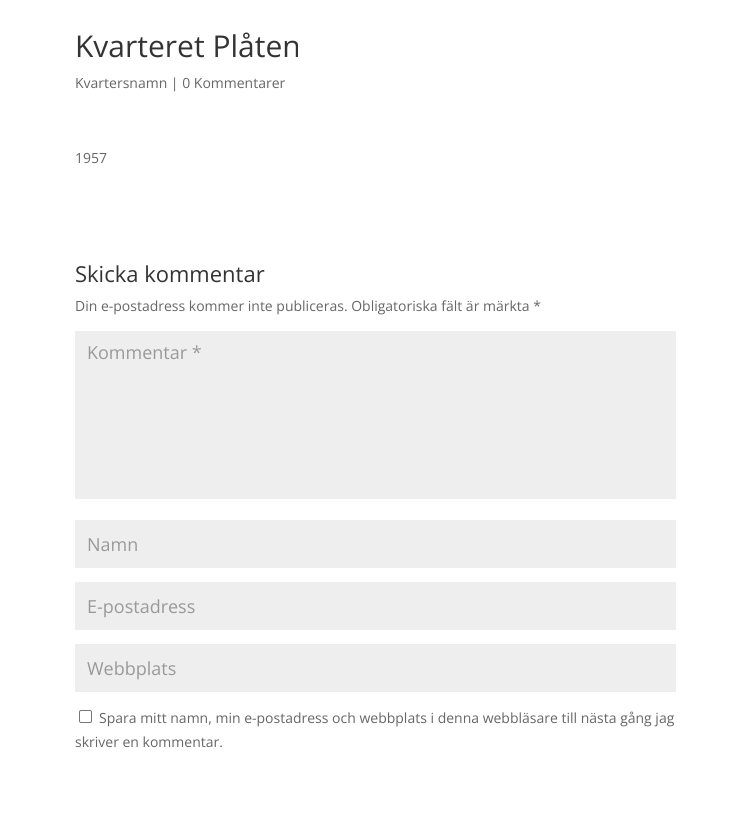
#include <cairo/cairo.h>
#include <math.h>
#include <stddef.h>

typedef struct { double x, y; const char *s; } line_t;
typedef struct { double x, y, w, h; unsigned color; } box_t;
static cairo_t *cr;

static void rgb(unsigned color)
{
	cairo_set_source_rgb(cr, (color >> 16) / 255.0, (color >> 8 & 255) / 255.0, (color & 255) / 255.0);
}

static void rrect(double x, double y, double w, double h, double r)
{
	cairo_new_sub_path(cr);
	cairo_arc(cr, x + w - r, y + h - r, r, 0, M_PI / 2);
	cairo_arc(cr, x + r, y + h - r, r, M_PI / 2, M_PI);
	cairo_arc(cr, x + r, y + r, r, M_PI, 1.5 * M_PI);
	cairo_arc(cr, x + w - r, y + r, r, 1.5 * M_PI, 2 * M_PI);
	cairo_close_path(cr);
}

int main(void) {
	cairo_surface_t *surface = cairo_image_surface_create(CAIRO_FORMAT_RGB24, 751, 824);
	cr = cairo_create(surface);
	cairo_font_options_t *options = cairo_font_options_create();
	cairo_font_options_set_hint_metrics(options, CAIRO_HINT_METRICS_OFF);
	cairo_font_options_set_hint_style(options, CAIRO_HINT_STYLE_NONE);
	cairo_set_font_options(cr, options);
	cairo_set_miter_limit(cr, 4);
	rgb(0xffffff);
	cairo_paint(cr);
	{
		static const box_t items[] = {
			{75, 331, 601, 168, 0xeeeeee},
			{75, 520, 601, 48, 0xeeeeee},
			{75, 582, 601, 48, 0xeeeeee},
			{75, 644, 601, 48, 0xeeeeee},
		};
		for (size_t i = 0; i < sizeof items / sizeof *items; i++) {
			rgb(items[i].color);
			cairo_rectangle(cr, items[i].x, items[i].y, items[i].w, items[i].h);
			cairo_fill(cr);
		}
	}
	rrect(79.5, 710.5, 12, 12, 1.5);
	rgb(0x767676);
	cairo_set_line_width(cr, 1);
	cairo_stroke(cr);
	cairo_select_font_face(cr, "Open Sans", CAIRO_FONT_SLANT_NORMAL, CAIRO_FONT_WEIGHT_NORMAL);
	cairo_set_font_size(cr, 30);
	rgb(0x333333);
	cairo_move_to(cr, 75, 57);
	cairo_show_text(cr, "Kvarteret Plåten");
	cairo_set_font_size(cr, 14);
	rgb(0x666666);
	cairo_move_to(cr, 75, 88);
	cairo_show_text(cr, "Kvartersnamn | 0 Kommentarer");
	cairo_move_to(cr, 75, 163);
	cairo_show_text(cr, "1957");
	cairo_set_font_size(cr, 22);
	rgb(0x333333);
	cairo_move_to(cr, 75, 282);
	cairo_show_text(cr, "Skicka kommentar");
	cairo_set_font_size(cr, 14);
	rgb(0x666666);
	cairo_move_to(cr, 75, 311);
	cairo_show_text(cr, "Din e-postadress kommer inte publiceras. Obligatoriska fält är märkta *");
	cairo_set_font_size(cr, 18);
	rgb(0x999999);
	{
		static const line_t items[] = {
			{87, 359, "Kommentar *"},
			{87, 551, "Namn"},
			{87, 613, "E-postadress"},
			{87, 675, "Webbplats"},
		};
		for (size_t i = 0; i < sizeof items / sizeof *items; i++) {
			cairo_move_to(cr, items[i].x, items[i].y);
			cairo_show_text(cr, items[i].s);
		}
	}
	cairo_set_font_size(cr, 14);
	rgb(0x666666);
	cairo_move_to(cr, 99, 723);
	cairo_show_text(cr, "Spara mitt namn, min e-postadress och webbplats i denna webbläsare till nästa gång jag");
	cairo_move_to(cr, 75, 747);
	cairo_show_text(cr, "skriver en kommentar.");
	cairo_surface_write_to_png(surface, "page.png");
	cairo_font_options_destroy(options);
	cairo_destroy(cr);
	cairo_surface_destroy(surface);
	return 0;
}
